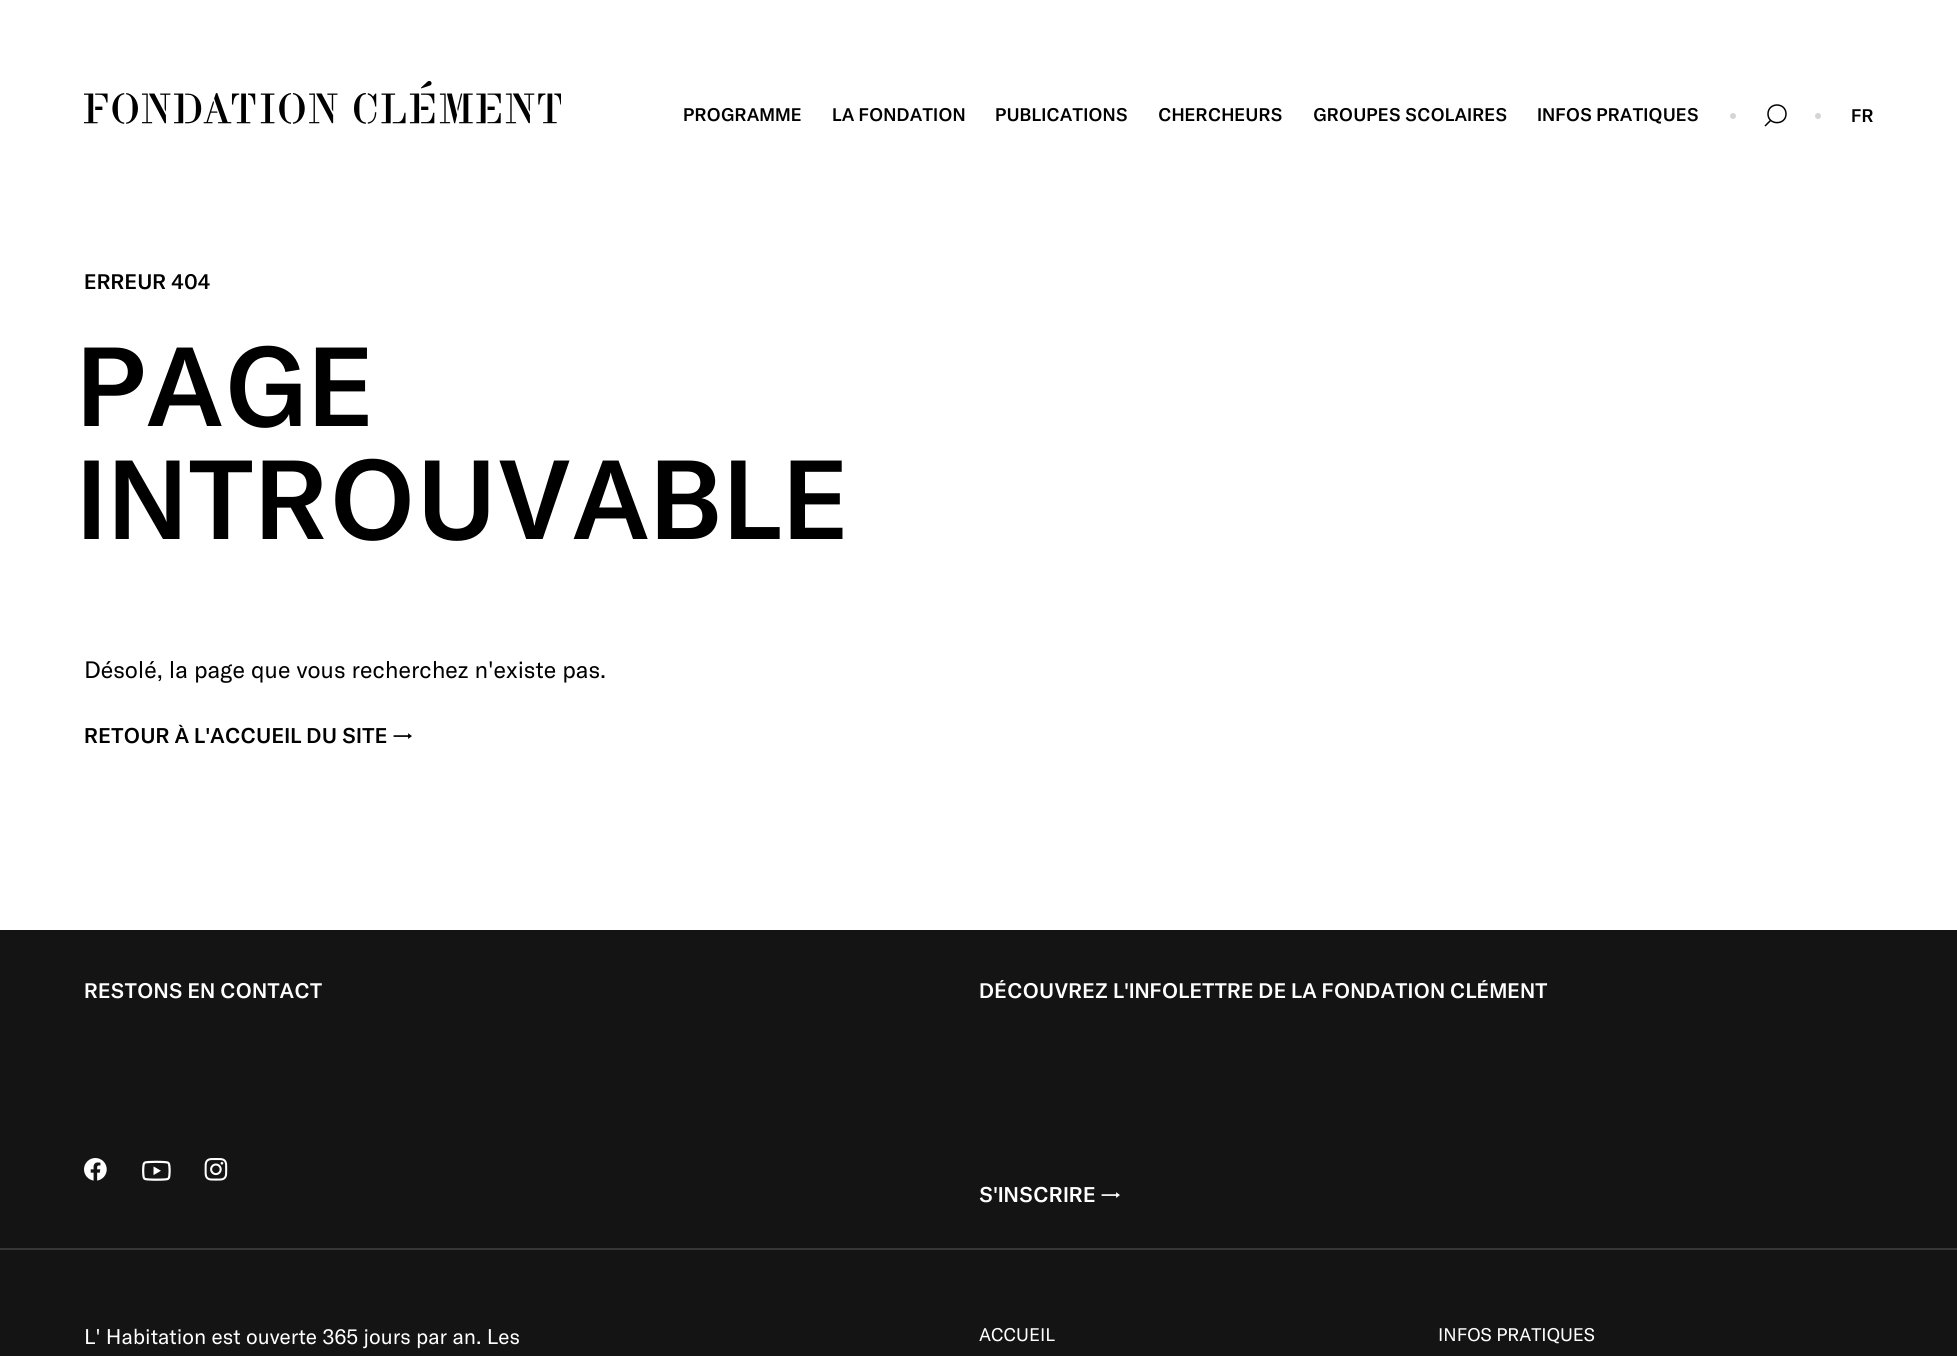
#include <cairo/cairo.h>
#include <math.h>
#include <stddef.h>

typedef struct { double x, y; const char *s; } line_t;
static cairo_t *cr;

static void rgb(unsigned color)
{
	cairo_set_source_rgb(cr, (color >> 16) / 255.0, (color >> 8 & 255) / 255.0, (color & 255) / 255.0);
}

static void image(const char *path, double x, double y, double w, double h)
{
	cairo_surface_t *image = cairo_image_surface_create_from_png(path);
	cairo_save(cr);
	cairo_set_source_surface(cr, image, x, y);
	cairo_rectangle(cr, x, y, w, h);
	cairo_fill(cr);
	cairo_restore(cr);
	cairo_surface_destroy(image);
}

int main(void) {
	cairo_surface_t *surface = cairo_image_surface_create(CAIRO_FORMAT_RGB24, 1957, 1356);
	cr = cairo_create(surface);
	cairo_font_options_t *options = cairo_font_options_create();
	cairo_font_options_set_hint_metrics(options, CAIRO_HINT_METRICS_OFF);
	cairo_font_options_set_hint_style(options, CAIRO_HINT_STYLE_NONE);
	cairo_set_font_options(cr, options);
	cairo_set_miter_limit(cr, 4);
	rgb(0xffffff);
	cairo_paint(cr);
	image("img/1.png", 84, 81, 477, 43);
	rgb(0xd5d5d5);
	cairo_arc(cr, 1733, 116, 3, 0, 2 * M_PI);
	cairo_fill(cr);
	cairo_new_path(cr);
	cairo_move_to(cr, 1765, 126);
	cairo_line_to(cr, 1771, 120);
	cairo_move_to(cr, 1768, 114);
	cairo_curve_to(cr, 1768, 102, 1786, 102, 1786, 114);
	cairo_curve_to(cr, 1786, 125.5, 1768, 125.5, 1768, 114);
	cairo_close_path(cr);
	rgb(0x000000);
	cairo_set_line_width(cr, 1.5);
	cairo_stroke(cr);
	rgb(0xd5d5d5);
	cairo_arc(cr, 1818, 116, 3, 0, 2 * M_PI);
	cairo_fill(cr);
	rgb(0x141414);
	cairo_rectangle(cr, 0, 930, 1957, 426);
	cairo_fill(cr);
	rgb(0x373737);
	cairo_rectangle(cr, 0, 1248, 1957, 2);
	cairo_fill(cr);
	image("img/2.png", 84, 1158, 23, 23);
	image("img/3.png", 142, 1160, 29, 21);
	image("img/4.png", 204, 1158, 24, 23);
	cairo_select_font_face(cr, "GT America Medium", CAIRO_FONT_SLANT_NORMAL, CAIRO_FONT_WEIGHT_NORMAL);
	cairo_set_font_size(cr, 18);
	rgb(0x000000);
	{
		static const line_t items[] = {
			{683, 121, "PROGRAMME"},
			{832, 121, "LA FONDATION"},
			{995, 121, "PUBLICATIONS"},
			{1158, 121, "CHERCHEURS"},
			{1313, 121, "GROUPES SCOLAIRES"},
			{1537, 121, "INFOS PRATIQUES"},
			{1851, 122, "FR"},
		};
		for (size_t i = 0; i < sizeof items / sizeof *items; i++) {
			cairo_move_to(cr, items[i].x, items[i].y);
			cairo_show_text(cr, items[i].s);
		}
	}
	cairo_set_font_size(cr, 20.75);
	cairo_move_to(cr, 84, 289);
	cairo_show_text(cr, "ERREUR 404");
	cairo_set_font_size(cr, 110.5);
	cairo_move_to(cr, 76, 426);
	cairo_show_text(cr, "PAGE");
	cairo_move_to(cr, 76, 539);
	cairo_show_text(cr, "INTROUVABLE");
	cairo_select_font_face(cr, "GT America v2", CAIRO_FONT_SLANT_NORMAL, CAIRO_FONT_WEIGHT_NORMAL);
	cairo_set_font_size(cr, 23.4);
	cairo_move_to(cr, 84, 678);
	cairo_show_text(cr, "Désolé, la page que vous recherchez n'existe pas.");
	cairo_select_font_face(cr, "GT America Medium", CAIRO_FONT_SLANT_NORMAL, CAIRO_FONT_WEIGHT_NORMAL);
	cairo_set_font_size(cr, 21);
	cairo_move_to(cr, 84, 743);
	cairo_show_text(cr, "RETOUR À L'ACCUEIL DU SITE");
	cairo_move_to(cr, 392, 743);
	cairo_show_text(cr, "→");
	cairo_set_font_size(cr, 20.75);
	rgb(0xffffff);
	cairo_move_to(cr, 84, 998);
	cairo_show_text(cr, "RESTONS EN CONTACT");
	cairo_move_to(cr, 979, 998);
	cairo_show_text(cr, "DÉCOUVREZ L'INFOLETTRE DE LA FONDATION CLÉMENT");
	cairo_set_font_size(cr, 21);
	cairo_move_to(cr, 979, 1202);
	cairo_show_text(cr, "S'INSCRIRE");
	cairo_move_to(cr, 1100, 1202);
	cairo_show_text(cr, "→");
	cairo_select_font_face(cr, "GT America v2", CAIRO_FONT_SLANT_NORMAL, CAIRO_FONT_WEIGHT_NORMAL);
	cairo_move_to(cr, 84, 1344);
	cairo_show_text(cr, "L' Habitation est ouverte 365 jours par an. Les");
	cairo_set_font_size(cr, 18);
	cairo_move_to(cr, 979, 1341);
	cairo_show_text(cr, "ACCUEIL");
	cairo_move_to(cr, 1438, 1341);
	cairo_show_text(cr, "INFOS PRATIQUES");
	cairo_surface_write_to_png(surface, "page.png");
	cairo_font_options_destroy(options);
	cairo_destroy(cr);
	cairo_surface_destroy(surface);
	return 0;
}
